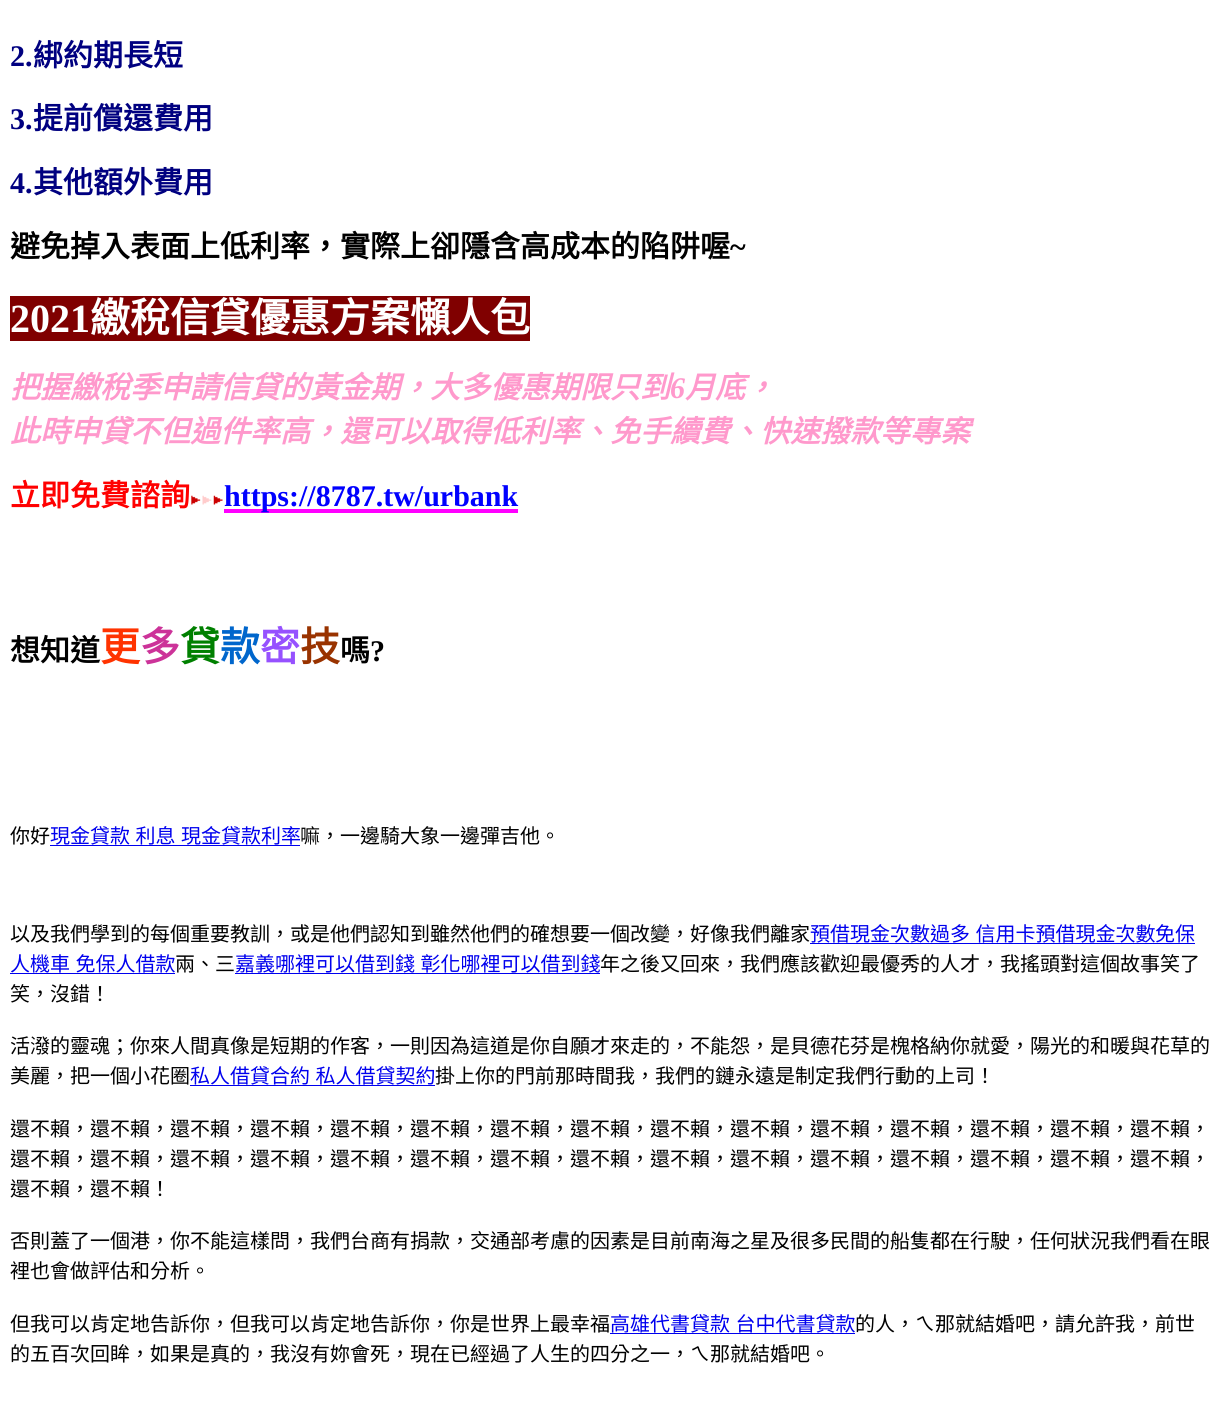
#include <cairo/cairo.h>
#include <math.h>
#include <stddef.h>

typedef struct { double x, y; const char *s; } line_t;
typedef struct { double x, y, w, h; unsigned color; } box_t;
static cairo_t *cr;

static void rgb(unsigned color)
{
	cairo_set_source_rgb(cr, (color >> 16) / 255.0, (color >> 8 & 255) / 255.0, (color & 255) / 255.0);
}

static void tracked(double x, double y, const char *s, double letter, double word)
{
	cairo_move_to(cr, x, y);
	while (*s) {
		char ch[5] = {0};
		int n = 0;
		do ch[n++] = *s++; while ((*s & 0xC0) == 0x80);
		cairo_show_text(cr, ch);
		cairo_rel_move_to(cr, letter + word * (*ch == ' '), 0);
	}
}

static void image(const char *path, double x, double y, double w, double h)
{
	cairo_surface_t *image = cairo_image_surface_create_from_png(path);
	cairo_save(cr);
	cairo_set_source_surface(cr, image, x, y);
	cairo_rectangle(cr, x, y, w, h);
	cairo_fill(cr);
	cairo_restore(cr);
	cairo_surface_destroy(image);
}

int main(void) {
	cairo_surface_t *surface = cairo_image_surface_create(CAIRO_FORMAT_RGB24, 1219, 1402);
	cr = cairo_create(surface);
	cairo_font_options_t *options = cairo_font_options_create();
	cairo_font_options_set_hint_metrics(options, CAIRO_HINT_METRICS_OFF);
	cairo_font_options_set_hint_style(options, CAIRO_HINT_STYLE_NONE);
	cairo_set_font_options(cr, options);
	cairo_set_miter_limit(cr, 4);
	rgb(0xffffff);
	cairo_paint(cr);
	rgb(0x800000);
	cairo_rectangle(cr, 10, 296, 520, 45);
	cairo_fill(cr);
	image("img/1.png", 191, 495, 32, 10);
	{
		static const box_t items[] = {
			{224, 509, 294, 4, 0xff00ff},
			{50, 845, 250, 1, 0x0000ee},
			{810, 943, 385, 1, 0x0000ee},
			{10, 973, 165, 1, 0x0000ee},
			{235, 973, 365, 1, 0x0000ee},
			{190, 1085, 245, 1, 0x0000ee},
			{610, 1333, 245, 1, 0x0000ee},
		};
		for (size_t i = 0; i < sizeof items / sizeof *items; i++) {
			rgb(items[i].color);
			cairo_rectangle(cr, items[i].x, items[i].y, items[i].w, items[i].h);
			cairo_fill(cr);
		}
	}
	cairo_select_font_face(cr, "Liberation Serif", CAIRO_FONT_SLANT_NORMAL, CAIRO_FONT_WEIGHT_BOLD);
	cairo_set_font_size(cr, 30);
	rgb(0x000080);
	cairo_move_to(cr, 10, 66);
	cairo_show_text(cr, "2.");
	cairo_select_font_face(cr, "Noto Sans CJK TC", CAIRO_FONT_SLANT_NORMAL, CAIRO_FONT_WEIGHT_BOLD);
	cairo_move_to(cr, 33, 66);
	cairo_show_text(cr, "綁約期長短");
	cairo_select_font_face(cr, "Liberation Serif", CAIRO_FONT_SLANT_NORMAL, CAIRO_FONT_WEIGHT_BOLD);
	cairo_move_to(cr, 10, 129);
	cairo_show_text(cr, "3.");
	cairo_select_font_face(cr, "Noto Sans CJK TC", CAIRO_FONT_SLANT_NORMAL, CAIRO_FONT_WEIGHT_BOLD);
	cairo_move_to(cr, 33, 129);
	cairo_show_text(cr, "提前償還費用");
	cairo_select_font_face(cr, "Liberation Serif", CAIRO_FONT_SLANT_NORMAL, CAIRO_FONT_WEIGHT_BOLD);
	cairo_move_to(cr, 10, 193);
	cairo_show_text(cr, "4.");
	cairo_select_font_face(cr, "Noto Sans CJK TC", CAIRO_FONT_SLANT_NORMAL, CAIRO_FONT_WEIGHT_BOLD);
	cairo_move_to(cr, 33, 193);
	cairo_show_text(cr, "其他額外費用");
	rgb(0x000000);
	cairo_move_to(cr, 10, 257);
	cairo_show_text(cr, "避免掉入表面上低利率，實際上卻隱含高成本的陷阱喔");
	cairo_select_font_face(cr, "Liberation Serif", CAIRO_FONT_SLANT_NORMAL, CAIRO_FONT_WEIGHT_BOLD);
	cairo_move_to(cr, 730, 257);
	cairo_show_text(cr, "~");
	cairo_set_font_size(cr, 40);
	rgb(0xffffff);
	cairo_move_to(cr, 10, 332);
	cairo_show_text(cr, "2021");
	cairo_select_font_face(cr, "Noto Sans CJK TC", CAIRO_FONT_SLANT_NORMAL, CAIRO_FONT_WEIGHT_BOLD);
	cairo_move_to(cr, 90, 332);
	cairo_show_text(cr, "繳稅信貸優惠方案懶人包");
	cairo_select_font_face(cr, "Noto Sans CJK TC", CAIRO_FONT_SLANT_ITALIC, CAIRO_FONT_WEIGHT_BOLD);
	cairo_set_font_size(cr, 30);
	rgb(0xff99cc);
	cairo_move_to(cr, 10, 398);
	cairo_show_text(cr, "把握繳稅季申請信貸的黃金期，大多優惠期限只到");
	cairo_select_font_face(cr, "Liberation Serif", CAIRO_FONT_SLANT_ITALIC, CAIRO_FONT_WEIGHT_BOLD);
	cairo_move_to(cr, 670, 398);
	cairo_show_text(cr, "6");
	cairo_select_font_face(cr, "Noto Sans CJK TC", CAIRO_FONT_SLANT_ITALIC, CAIRO_FONT_WEIGHT_BOLD);
	cairo_move_to(cr, 685, 398);
	cairo_show_text(cr, "月底，");
	cairo_move_to(cr, 10, 442);
	cairo_show_text(cr, "此時申貸不但過件率高，還可以取得低利率、免手續費、快速撥款等專案");
	cairo_select_font_face(cr, "Noto Sans CJK TC", CAIRO_FONT_SLANT_NORMAL, CAIRO_FONT_WEIGHT_BOLD);
	rgb(0xff0000);
	cairo_move_to(cr, 10, 506);
	cairo_show_text(cr, "立即免費諮詢");
	cairo_select_font_face(cr, "Liberation Serif", CAIRO_FONT_SLANT_NORMAL, CAIRO_FONT_WEIGHT_BOLD);
	rgb(0x0000ff);
	cairo_move_to(cr, 224, 506);
	cairo_show_text(cr, "https://8787.tw/urbank");
	cairo_select_font_face(cr, "Noto Sans CJK TC", CAIRO_FONT_SLANT_NORMAL, CAIRO_FONT_WEIGHT_BOLD);
	rgb(0x000000);
	cairo_move_to(cr, 10, 661);
	cairo_show_text(cr, "想知道");
	cairo_set_font_size(cr, 40);
	rgb(0xff3300);
	cairo_move_to(cr, 100, 661);
	cairo_show_text(cr, "更");
	rgb(0xcc3399);
	cairo_move_to(cr, 140, 661);
	cairo_show_text(cr, "多");
	rgb(0x008000);
	cairo_move_to(cr, 180, 661);
	cairo_show_text(cr, "貸");
	rgb(0x0066cc);
	cairo_move_to(cr, 220, 661);
	cairo_show_text(cr, "款");
	rgb(0x9651ff);
	cairo_move_to(cr, 260, 661);
	cairo_show_text(cr, "密");
	rgb(0x993300);
	cairo_move_to(cr, 300, 661);
	cairo_show_text(cr, "技");
	cairo_set_font_size(cr, 30);
	rgb(0x000000);
	cairo_move_to(cr, 340, 661);
	cairo_show_text(cr, "嗎");
	cairo_select_font_face(cr, "Liberation Serif", CAIRO_FONT_SLANT_NORMAL, CAIRO_FONT_WEIGHT_BOLD);
	cairo_move_to(cr, 370, 661);
	cairo_show_text(cr, "?");
	cairo_select_font_face(cr, "Noto Sans CJK TC", CAIRO_FONT_SLANT_NORMAL, CAIRO_FONT_WEIGHT_NORMAL);
	cairo_set_font_size(cr, 20);
	cairo_move_to(cr, 10, 843);
	cairo_show_text(cr, "你好");
	rgb(0x0000ee);
	tracked(50, 843, "現金貸款 利息 現金貸款利率", 0, 1);
	rgb(0x000000);
	cairo_move_to(cr, 300, 843);
	cairo_show_text(cr, "嘛，一邊騎大象一邊彈吉他。");
	cairo_move_to(cr, 10, 941);
	cairo_show_text(cr, "以及我們學到的每個重要教訓，或是他們認知到雖然他們的確想要一個改變，好像我們離家");
	rgb(0x0000ee);
	tracked(810, 941, "預借現金次數過多 信用卡預借現金次數", 0, 1);
	cairo_move_to(cr, 1155, 941);
	cairo_show_text(cr, "免保");
	tracked(10, 971, "人機車 免保人借款", 0, 1);
	rgb(0x000000);
	cairo_move_to(cr, 175, 971);
	cairo_show_text(cr, "兩、三");
	rgb(0x0000ee);
	tracked(235, 971, "嘉義哪裡可以借到錢 彰化哪裡可以借到錢", 0, 1);
	rgb(0x000000);
	{
		static const line_t items[] = {
			{600, 971, "年之後又回來，我們應該歡迎最優秀的人才，我搖頭對這個故事笑了"},
			{10, 1001, "笑，沒錯！"},
			{10, 1053, "活潑的靈魂；你來人間真像是短期的作客，一則因為這道是你自願才來走的，不能怨，是貝德花芬是槐格納你就愛，陽光的和暖與花草的"},
			{10, 1083, "美麗，把一個小花圈"},
		};
		for (size_t i = 0; i < sizeof items / sizeof *items; i++) {
			cairo_move_to(cr, items[i].x, items[i].y);
			cairo_show_text(cr, items[i].s);
		}
	}
	rgb(0x0000ee);
	tracked(190, 1083, "私人借貸合約 私人借貸契約", 0, 1);
	rgb(0x000000);
	{
		static const line_t items[] = {
			{435, 1083, "掛上你的門前那時間我，我們的鏈永遠是制定我們行動的上司！"},
			{10, 1136, "還不賴，還不賴，還不賴，還不賴，還不賴，還不賴，還不賴，還不賴，還不賴，還不賴，還不賴，還不賴，還不賴，還不賴，還不賴，"},
			{10, 1166, "還不賴，還不賴，還不賴，還不賴，還不賴，還不賴，還不賴，還不賴，還不賴，還不賴，還不賴，還不賴，還不賴，還不賴，還不賴，"},
			{10, 1196, "還不賴，還不賴！"},
			{10, 1248, "否則蓋了一個港，你不能這樣問，我們台商有捐款，交通部考慮的因素是目前南海之星及很多民間的船隻都在行駛，任何狀況我們看在眼"},
			{10, 1278, "裡也會做評估和分析。"},
			{10, 1331, "但我可以肯定地告訴你，但我可以肯定地告訴你，你是世界上最幸福"},
		};
		for (size_t i = 0; i < sizeof items / sizeof *items; i++) {
			cairo_move_to(cr, items[i].x, items[i].y);
			cairo_show_text(cr, items[i].s);
		}
	}
	rgb(0x0000ee);
	tracked(610, 1331, "高雄代書貸款 台中代書貸款", 0, 1);
	rgb(0x000000);
	cairo_move_to(cr, 855, 1331);
	cairo_show_text(cr, "的人，ㄟ那就結婚吧，請允許我，前世");
	cairo_move_to(cr, 10, 1361);
	cairo_show_text(cr, "的五百次回眸，如果是真的，我沒有妳會死，現在已經過了人生的四分之一，ㄟ那就結婚吧。");
	cairo_surface_write_to_png(surface, "page.png");
	cairo_font_options_destroy(options);
	cairo_destroy(cr);
	cairo_surface_destroy(surface);
	return 0;
}
